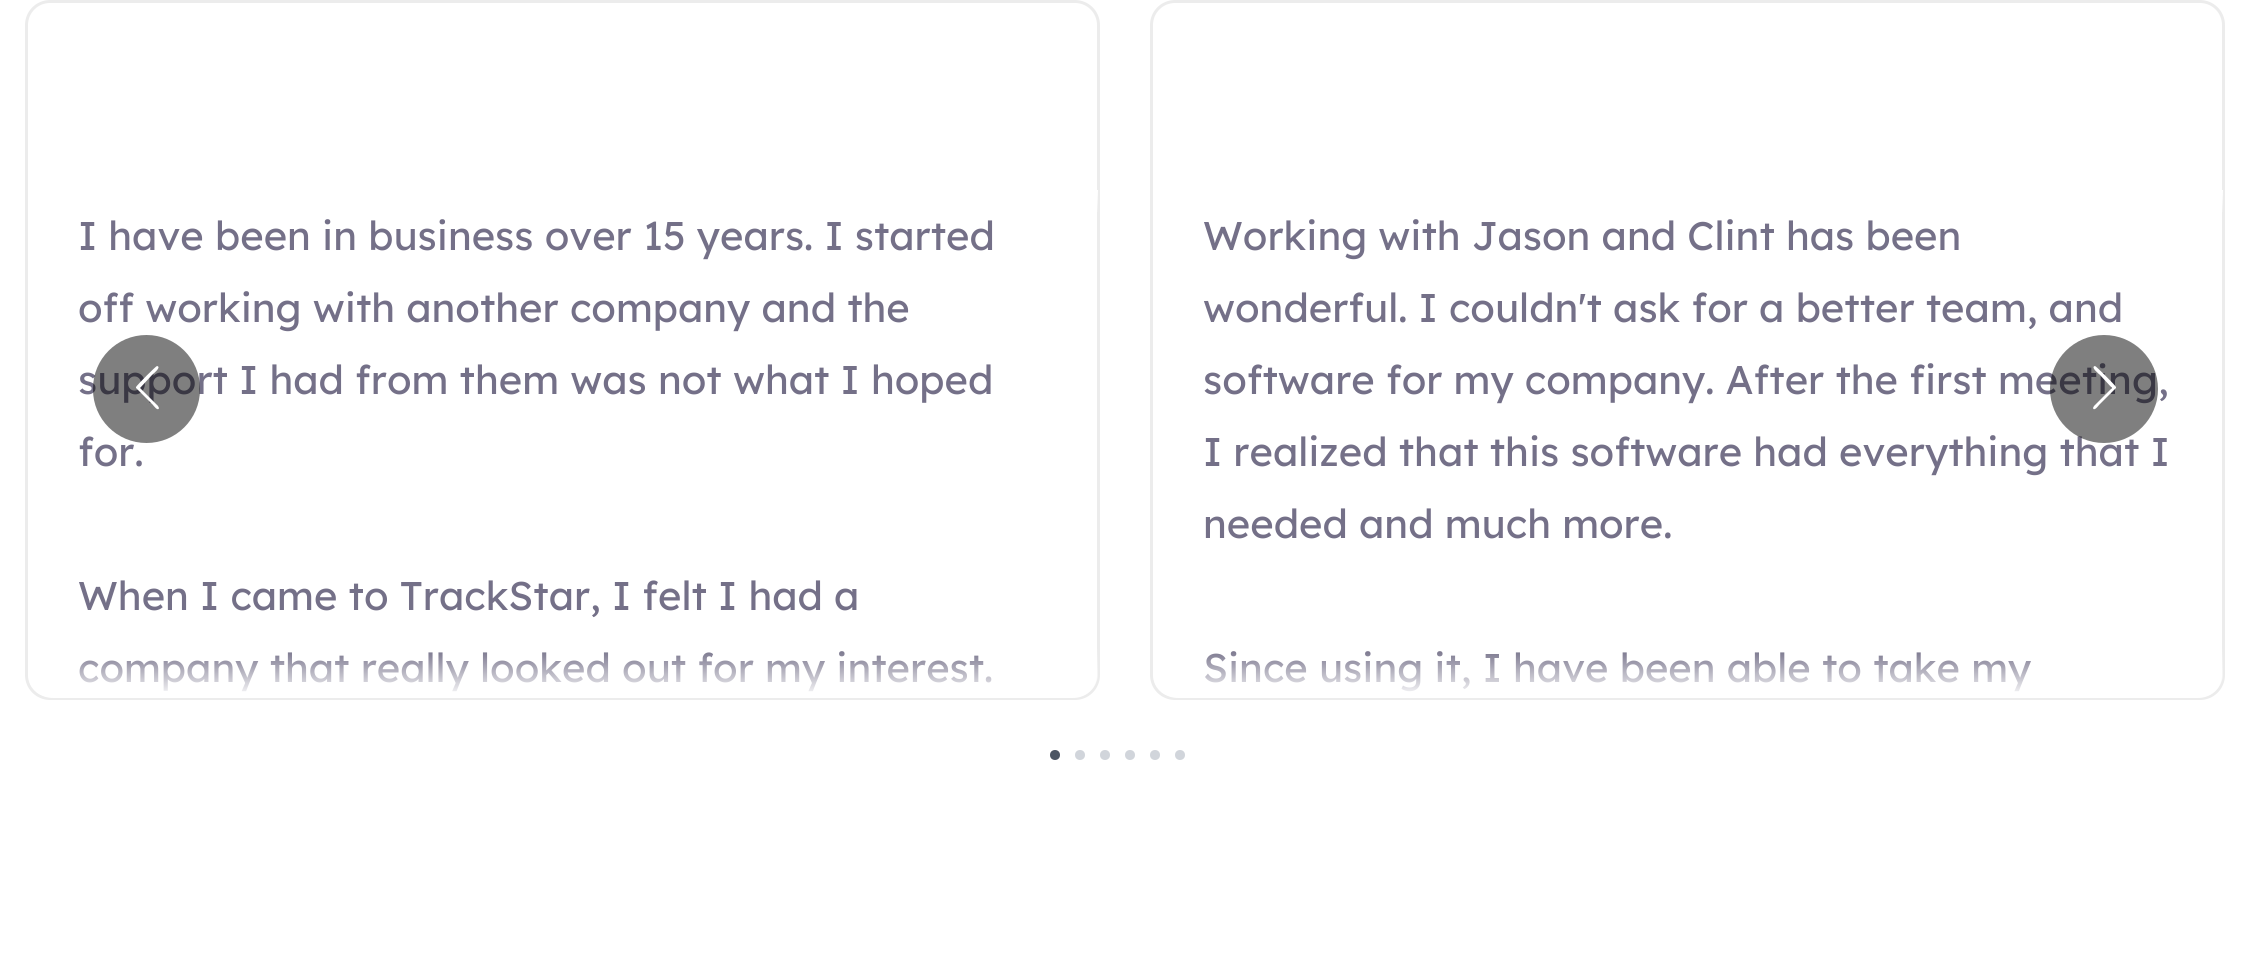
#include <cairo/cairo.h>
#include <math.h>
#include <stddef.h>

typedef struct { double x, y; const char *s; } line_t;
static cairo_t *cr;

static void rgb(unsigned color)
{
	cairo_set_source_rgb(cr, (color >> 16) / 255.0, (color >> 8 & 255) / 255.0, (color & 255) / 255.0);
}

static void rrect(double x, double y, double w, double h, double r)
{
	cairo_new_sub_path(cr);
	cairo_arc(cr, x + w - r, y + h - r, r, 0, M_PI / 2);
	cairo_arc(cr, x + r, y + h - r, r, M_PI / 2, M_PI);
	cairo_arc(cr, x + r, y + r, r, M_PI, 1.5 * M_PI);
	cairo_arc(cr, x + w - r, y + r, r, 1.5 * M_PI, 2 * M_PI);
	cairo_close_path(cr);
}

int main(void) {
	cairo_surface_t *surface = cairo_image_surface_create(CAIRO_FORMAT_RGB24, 2249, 958);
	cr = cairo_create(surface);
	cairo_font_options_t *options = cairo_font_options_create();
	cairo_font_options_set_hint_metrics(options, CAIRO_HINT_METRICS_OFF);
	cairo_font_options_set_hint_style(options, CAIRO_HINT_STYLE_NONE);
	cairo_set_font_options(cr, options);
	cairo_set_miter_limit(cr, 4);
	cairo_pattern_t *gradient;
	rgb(0xffffff);
	cairo_paint(cr);
	rrect(26.5, 1.5, 1072, 697, 23.5);
	rgb(0xececec);
	cairo_set_line_width(cr, 3);
	cairo_stroke(cr);
	gradient = cairo_pattern_create_linear(563, 215, 563, 190);
	cairo_pattern_add_color_stop_rgba(gradient, 0, 1, 1, 1, 0);
	cairo_pattern_add_color_stop_rgba(gradient, 1, 1, 1, 1, 1);
	cairo_set_source(cr, gradient);
	cairo_pattern_destroy(gradient);
	cairo_rectangle(cr, 1097, 190, 1, 22);
	cairo_fill(cr);
	rrect(1151.5, 1.5, 1072, 697, 23.5);
	rgb(0xececec);
	cairo_stroke(cr);
	gradient = cairo_pattern_create_linear(1688, 215, 1688, 190);
	cairo_pattern_add_color_stop_rgba(gradient, 0, 1, 1, 1, 0);
	cairo_pattern_add_color_stop_rgba(gradient, 1, 1, 1, 1, 1);
	cairo_set_source(cr, gradient);
	cairo_pattern_destroy(gradient);
	cairo_rectangle(cr, 2222, 190, 1, 22);
	cairo_fill(cr);
	rgb(0x4b5563);
	cairo_arc(cr, 1055, 755, 5, 0, 2 * M_PI);
	cairo_fill(cr);
	rgb(0xd1d5db);
	cairo_arc(cr, 1080, 755, 5, 0, 2 * M_PI);
	cairo_fill(cr);
	cairo_arc(cr, 1105, 755, 5, 0, 2 * M_PI);
	cairo_fill(cr);
	cairo_arc(cr, 1130, 755, 5, 0, 2 * M_PI);
	cairo_fill(cr);
	cairo_arc(cr, 1155, 755, 5, 0, 2 * M_PI);
	cairo_fill(cr);
	cairo_arc(cr, 1180, 755, 5, 0, 2 * M_PI);
	cairo_fill(cr);
	cairo_select_font_face(cr, "Lexend", CAIRO_FONT_SLANT_NORMAL, CAIRO_FONT_WEIGHT_NORMAL);
	cairo_set_font_size(cr, 40);
	rgb(0x747088);
	{
		static const line_t items[] = {
			{78, 250, "I have been in business over 15 years. I started"},
			{78, 322, "off working with another company and the"},
			{78, 394, "support I had from them was not what I hoped"},
			{78, 466, "for."},
			{78, 610, "When I came to TrackStar, I felt I had a"},
			{78, 682, "company that really looked out for my interest."},
		};
		for (size_t i = 0; i < sizeof items / sizeof *items; i++) {
			cairo_move_to(cr, items[i].x, items[i].y);
			cairo_show_text(cr, items[i].s);
		}
	}
	cairo_save(cr);
	rrect(28, 3, 1070, 695, 23);
	cairo_clip(cr);
	gradient = cairo_pattern_create_linear(563, 648, 563, 698);
	cairo_pattern_add_color_stop_rgba(gradient, 0, 1, 1, 1, 0);
	cairo_pattern_add_color_stop_rgba(gradient, 1, 1, 1, 1, 1);
	cairo_set_source(cr, gradient);
	cairo_pattern_destroy(gradient);
	cairo_new_path(cr);
	cairo_move_to(cr, 28, 648);
	cairo_line_to(cr, 1098, 648);
	cairo_line_to(cr, 1098, 673);
	cairo_curve_to(cr, 1098, 687, 1087, 698, 1073, 698);
	cairo_line_to(cr, 53, 698);
	cairo_curve_to(cr, 39, 698, 28, 687, 28, 673);
	cairo_close_path(cr);
	cairo_fill(cr);
	cairo_restore(cr);
	{
		static const line_t items[] = {
			{1203, 250, "Working with Jason and Clint has been"},
			{1203, 322, "wonderful. I couldn't ask for a better team, and"},
			{1203, 394, "software for my company. After the first meeting,"},
			{1203, 466, "I realized that this software had everything that I"},
			{1203, 538, "needed and much more."},
			{1203, 682, "Since using it, I have been able to take my"},
		};
		for (size_t i = 0; i < sizeof items / sizeof *items; i++) {
			cairo_move_to(cr, items[i].x, items[i].y);
			cairo_show_text(cr, items[i].s);
		}
	}
	cairo_save(cr);
	rrect(1153, 3, 1070, 695, 23);
	cairo_clip(cr);
	gradient = cairo_pattern_create_linear(1688, 648, 1688, 698);
	cairo_pattern_add_color_stop_rgba(gradient, 0, 1, 1, 1, 0);
	cairo_pattern_add_color_stop_rgba(gradient, 1, 1, 1, 1, 1);
	cairo_set_source(cr, gradient);
	cairo_pattern_destroy(gradient);
	cairo_new_path(cr);
	cairo_move_to(cr, 1153, 648);
	cairo_line_to(cr, 2223, 648);
	cairo_line_to(cr, 2223, 673);
	cairo_curve_to(cr, 2223, 687, 2212, 698, 2198, 698);
	cairo_line_to(cr, 1178, 698);
	cairo_curve_to(cr, 1164, 698, 1153, 687, 1153, 673);
	cairo_close_path(cr);
	cairo_fill(cr);
	cairo_restore(cr);
	cairo_set_source_rgba(cr, 0, 0, 0, 0.5);
	rrect(93, 335, 107, 108, 53.5);
	cairo_fill(cr);
	rgb(0xffffff);
	cairo_new_path(cr);
	cairo_move_to(cr, 158, 406);
	cairo_line_to(cr, 159, 408);
	cairo_curve_to(cr, 158, 412, 153, 405, 153, 405);
	cairo_line_to(cr, 136, 388);
	cairo_line_to(cr, 136, 387);
	cairo_curve_to(cr, 138, 384, 156, 366, 157, 366);
	cairo_curve_to(cr, 162, 367, 153, 374, 152, 375);
	cairo_line_to(cr, 140, 388);
	cairo_close_path(cr);
	cairo_fill(cr);
	cairo_set_source_rgba(cr, 0, 0, 0, 0.5);
	cairo_arc(cr, 2104, 389, 54, 0, 2 * M_PI);
	cairo_fill(cr);
	rgb(0xffffff);
	cairo_new_path(cr);
	cairo_move_to(cr, 2094, 406);
	cairo_line_to(cr, 2112, 388);
	cairo_line_to(cr, 2100, 375);
	cairo_curve_to(cr, 2099, 374, 2090, 367, 2095, 366);
	cairo_curve_to(cr, 2096, 366, 2114, 384, 2116, 387);
	cairo_line_to(cr, 2116, 388);
	cairo_line_to(cr, 2099, 405);
	cairo_curve_to(cr, 2099, 405, 2094, 412, 2093, 408);
	cairo_close_path(cr);
	cairo_fill(cr);
	cairo_surface_write_to_png(surface, "page.png");
	cairo_font_options_destroy(options);
	cairo_destroy(cr);
	cairo_surface_destroy(surface);
	return 0;
}
